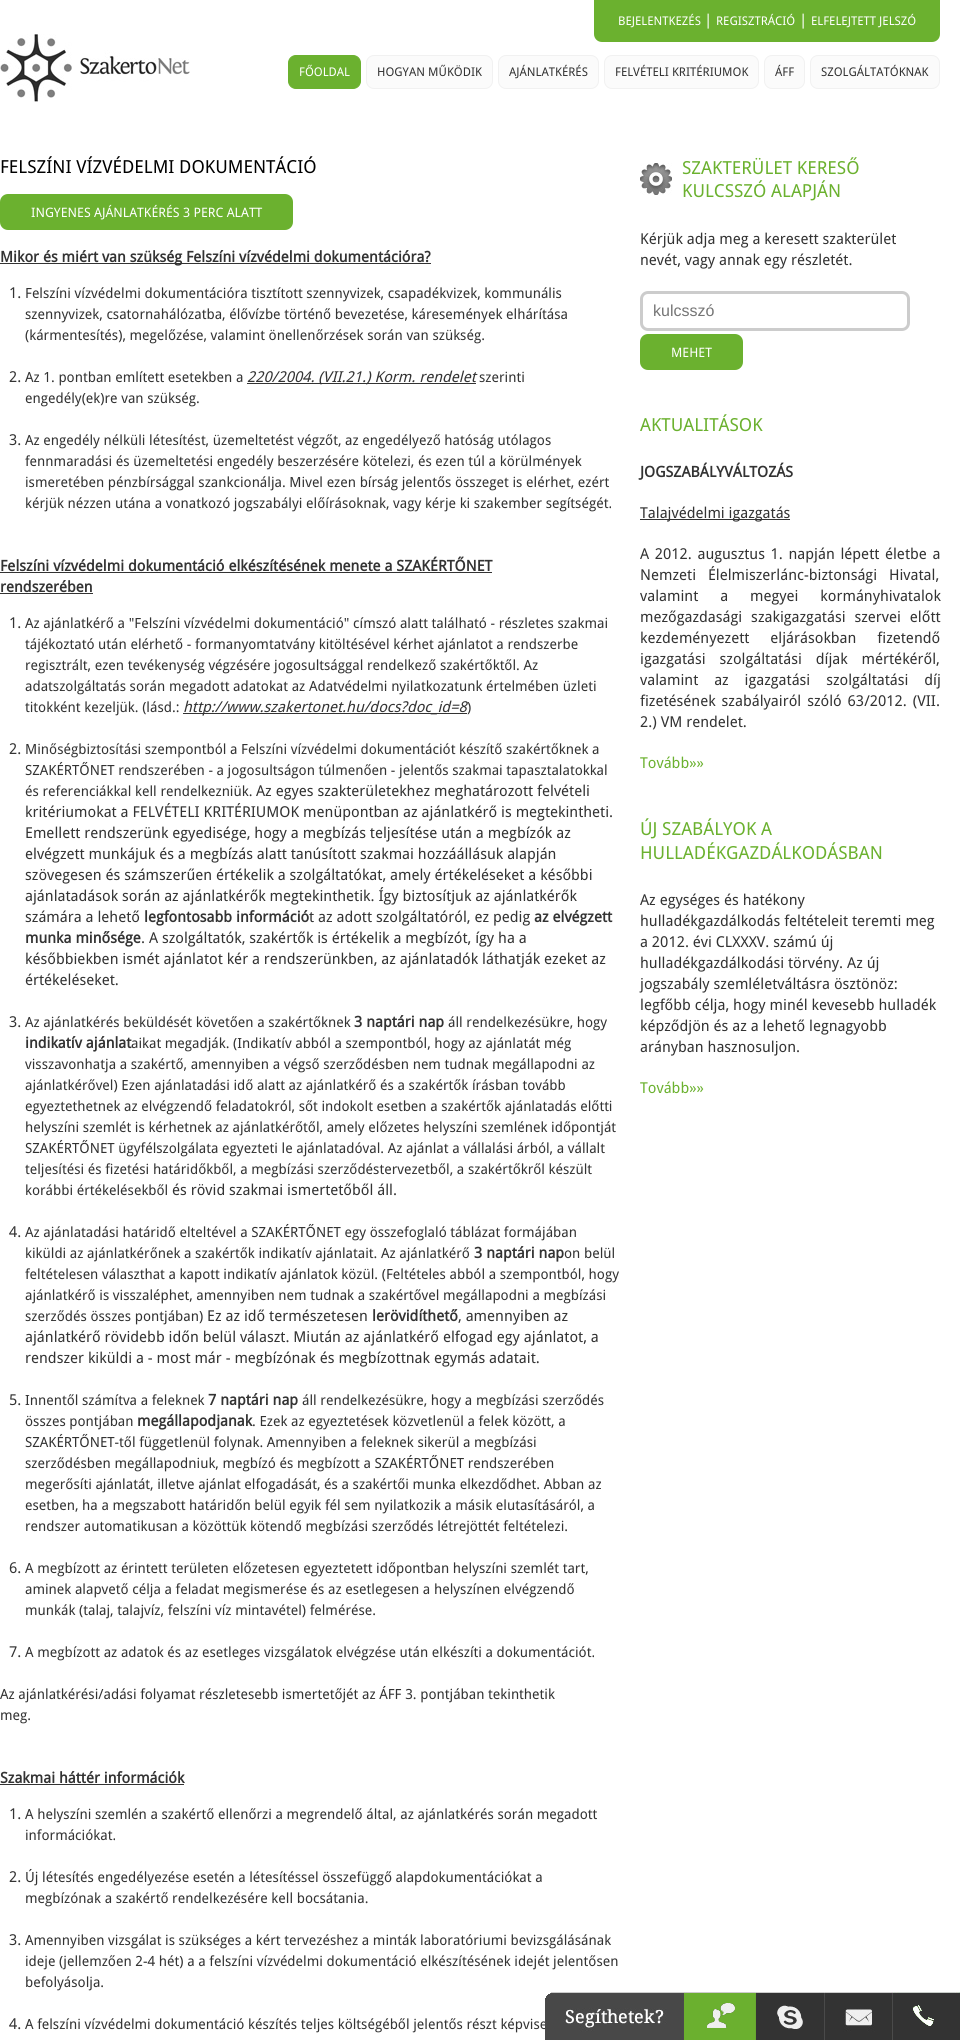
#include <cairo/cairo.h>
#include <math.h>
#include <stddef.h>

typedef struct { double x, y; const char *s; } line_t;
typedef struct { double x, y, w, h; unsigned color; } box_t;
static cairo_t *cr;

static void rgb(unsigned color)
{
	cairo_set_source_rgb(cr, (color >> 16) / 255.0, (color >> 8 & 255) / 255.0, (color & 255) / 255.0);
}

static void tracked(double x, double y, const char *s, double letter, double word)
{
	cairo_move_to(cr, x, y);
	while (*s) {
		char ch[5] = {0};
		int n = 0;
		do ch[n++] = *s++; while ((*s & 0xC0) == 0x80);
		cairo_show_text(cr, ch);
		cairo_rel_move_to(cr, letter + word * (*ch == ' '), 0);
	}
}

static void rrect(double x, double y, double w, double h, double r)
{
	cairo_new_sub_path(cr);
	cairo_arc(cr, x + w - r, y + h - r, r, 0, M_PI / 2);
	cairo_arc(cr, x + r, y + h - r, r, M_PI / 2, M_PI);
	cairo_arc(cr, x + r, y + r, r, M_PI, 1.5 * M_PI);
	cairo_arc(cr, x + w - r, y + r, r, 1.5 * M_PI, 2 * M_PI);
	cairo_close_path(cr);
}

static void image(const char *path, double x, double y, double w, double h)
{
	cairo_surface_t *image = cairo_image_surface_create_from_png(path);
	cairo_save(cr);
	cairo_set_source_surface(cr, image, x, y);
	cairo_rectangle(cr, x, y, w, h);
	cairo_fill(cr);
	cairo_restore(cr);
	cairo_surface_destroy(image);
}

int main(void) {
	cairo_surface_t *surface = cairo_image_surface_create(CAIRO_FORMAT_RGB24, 960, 2040);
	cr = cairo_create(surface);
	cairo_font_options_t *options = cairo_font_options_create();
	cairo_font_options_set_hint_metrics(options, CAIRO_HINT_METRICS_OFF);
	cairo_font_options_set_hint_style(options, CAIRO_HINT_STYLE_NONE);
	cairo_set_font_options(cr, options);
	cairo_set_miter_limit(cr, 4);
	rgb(0xffffff);
	cairo_paint(cr);
	rgb(0x6bb12f);
	cairo_new_path(cr);
	cairo_move_to(cr, 594, 0);
	cairo_line_to(cr, 940, 0);
	cairo_line_to(cr, 940, 34);
	cairo_curve_to(cr, 940, 38.5, 936.5, 42, 932, 42);
	cairo_line_to(cr, 602, 42);
	cairo_curve_to(cr, 597.5, 42, 594, 38.5, 594, 34);
	cairo_close_path(cr);
	cairo_fill(cr);
	image("img/1.png", 0, 34, 190, 68);
	rrect(288.5, 55.5, 72, 33, 7.5);
	cairo_fill_preserve(cr);
	cairo_set_line_width(cr, 1);
	cairo_stroke(cr);
	rgb(0xfbfbfb);
	rrect(366.5, 55.5, 126, 33, 7.5);
	cairo_fill_preserve(cr);
	rgb(0xf1f1f1);
	cairo_stroke(cr);
	rgb(0xfbfbfb);
	rrect(498.5, 55.5, 100, 33, 7.5);
	cairo_fill_preserve(cr);
	rgb(0xf1f1f1);
	cairo_stroke(cr);
	rgb(0xfbfbfb);
	rrect(604.5, 55.5, 154, 33, 7.5);
	cairo_fill_preserve(cr);
	rgb(0xf1f1f1);
	cairo_stroke(cr);
	rgb(0xfbfbfb);
	rrect(764.5, 55.5, 40, 33, 7.5);
	cairo_fill_preserve(cr);
	rgb(0xf1f1f1);
	cairo_stroke(cr);
	rgb(0xfbfbfb);
	rrect(810.5, 55.5, 129, 33, 7.5);
	cairo_fill_preserve(cr);
	rgb(0xf1f1f1);
	cairo_stroke(cr);
	rgb(0x6bb12f);
	rrect(0, 194, 293, 36, 8);
	cairo_fill(cr);
	{
		static const box_t items[] = {
			{0, 263, 431, 1, 0x333333},
			{247, 383, 229, 1, 0x333333},
			{0, 572, 492, 1, 0x333333},
			{0, 593, 93, 1, 0x333333},
			{183, 713, 284, 1, 0x333333},
			{0, 1784, 184, 1, 0x333333},
		};
		for (size_t i = 0; i < sizeof items / sizeof *items; i++) {
			rgb(items[i].color);
			cairo_rectangle(cr, items[i].x, items[i].y, items[i].w, items[i].h);
			cairo_fill(cr);
		}
	}
	image("img/2.png", 640, 163, 32, 32);
	rrect(641.5, 292.5, 267, 37, 6.5);
	rgb(0xcccccc);
	cairo_set_line_width(cr, 3);
	cairo_stroke(cr);
	rgb(0x6bb12f);
	rrect(640, 334, 103, 36, 8);
	cairo_fill(cr);
	rgb(0x333333);
	cairo_rectangle(cr, 640, 519, 150, 1);
	cairo_fill(cr);
	cairo_select_font_face(cr, "Droid Sans", CAIRO_FONT_SLANT_NORMAL, CAIRO_FONT_WEIGHT_NORMAL);
	cairo_set_font_size(cr, 12);
	rgb(0xffffff);
	cairo_move_to(cr, 618, 25);
	cairo_show_text(cr, "BEJELENTKEZÉS");
	cairo_set_font_size(cr, 15);
	cairo_move_to(cr, 704, 25);
	cairo_show_text(cr, "|");
	cairo_set_font_size(cr, 12);
	cairo_move_to(cr, 716, 25);
	cairo_show_text(cr, "REGISZTRÁCIÓ");
	cairo_set_font_size(cr, 15);
	cairo_move_to(cr, 799, 25);
	cairo_show_text(cr, "|");
	cairo_set_font_size(cr, 12);
	cairo_move_to(cr, 811, 25);
	cairo_show_text(cr, "ELFELEJTETT JELSZÓ");
	cairo_move_to(cr, 299, 76);
	cairo_show_text(cr, "FŐOLDAL");
	rgb(0x333333);
	{
		static const line_t items[] = {
			{377, 76, "HOGYAN MŰKÖDIK"},
			{509, 76, "AJÁNLATKÉRÉS"},
			{615, 76, "FELVÉTELI KRITÉRIUMOK"},
			{775, 76, "ÁFF"},
			{821, 76, "SZOLGÁLTATÓKNAK"},
		};
		for (size_t i = 0; i < sizeof items / sizeof *items; i++) {
			cairo_move_to(cr, items[i].x, items[i].y);
			cairo_show_text(cr, items[i].s);
		}
	}
	cairo_set_font_size(cr, 18);
	rgb(0x000000);
	cairo_move_to(cr, 0, 173);
	cairo_show_text(cr, "FELSZÍNI VÍZVÉDELMI DOKUMENTÁCIÓ");
	cairo_set_font_size(cr, 13);
	rgb(0xffffff);
	cairo_move_to(cr, 31, 217);
	cairo_show_text(cr, "INGYENES AJÁNLATKÉRÉS 3 PERC ALATT");
	cairo_select_font_face(cr, "Droid Sans", CAIRO_FONT_SLANT_NORMAL, CAIRO_FONT_WEIGHT_BOLD);
	cairo_set_font_size(cr, 15);
	rgb(0x333333);
	cairo_move_to(cr, 0, 262);
	cairo_show_text(cr, "Mikor és miért van szükség Felszíni vízvédelmi dokumentációra?");
	cairo_select_font_face(cr, "Droid Sans", CAIRO_FONT_SLANT_NORMAL, CAIRO_FONT_WEIGHT_NORMAL);
	cairo_move_to(cr, 9, 298);
	cairo_show_text(cr, "1.");
	cairo_set_font_size(cr, 14);
	{
		static const line_t items[] = {
			{25, 298, "Felszíni vízvédelmi dokumentációra tisztított szennyvizek, csapadékvizek, kommunális"},
			{25, 319, "szennyvizek, csatornahálózatba, élővízbe történő bevezetése, káresemények elhárítása"},
			{25, 340, "(kármentesítés), megelőzése, valamint önellenőrzések során van szükség."},
		};
		for (size_t i = 0; i < sizeof items / sizeof *items; i++) {
			cairo_move_to(cr, items[i].x, items[i].y);
			cairo_show_text(cr, items[i].s);
		}
	}
	cairo_set_font_size(cr, 15);
	cairo_move_to(cr, 9, 382);
	cairo_show_text(cr, "2.");
	cairo_set_font_size(cr, 14);
	cairo_move_to(cr, 25, 382);
	cairo_show_text(cr, "Az 1. pontban említett esetekben a");
	cairo_select_font_face(cr, "Droid Sans", CAIRO_FONT_SLANT_ITALIC, CAIRO_FONT_WEIGHT_NORMAL);
	cairo_set_font_size(cr, 15);
	cairo_move_to(cr, 247, 382);
	cairo_show_text(cr, "220/2004. (VII.21.) Korm. rendelet");
	cairo_select_font_face(cr, "Droid Sans", CAIRO_FONT_SLANT_NORMAL, CAIRO_FONT_WEIGHT_NORMAL);
	cairo_set_font_size(cr, 14);
	cairo_move_to(cr, 479, 382);
	cairo_show_text(cr, "szerinti");
	cairo_move_to(cr, 25, 403);
	cairo_show_text(cr, "engedély(ek)re van szükség.");
	cairo_set_font_size(cr, 15);
	cairo_move_to(cr, 9, 445);
	cairo_show_text(cr, "3.");
	cairo_set_font_size(cr, 14);
	{
		static const line_t items[] = {
			{25, 445, "Az engedély nélküli létesítést, üzemeltetést végzőt, az engedélyező hatóság utólagos"},
			{25, 466, "fennmaradási és üzemeltetési engedély beszerzésére kötelezi, és ezen túl a körülmények"},
			{25, 487, "ismeretében pénzbírsággal szankcionálja. Mivel ezen bírság jelentős összeget is elérhet, ezért"},
			{25, 508, "kérjük nézzen utána a vonatkozó jogszabályi előírásoknak, vagy kérje ki szakember segítségét."},
		};
		for (size_t i = 0; i < sizeof items / sizeof *items; i++) {
			cairo_move_to(cr, items[i].x, items[i].y);
			cairo_show_text(cr, items[i].s);
		}
	}
	cairo_select_font_face(cr, "Droid Sans", CAIRO_FONT_SLANT_NORMAL, CAIRO_FONT_WEIGHT_BOLD);
	cairo_set_font_size(cr, 15);
	cairo_move_to(cr, 0, 571);
	cairo_show_text(cr, "Felszíni vízvédelmi dokumentáció elkészítésének menete a SZAKÉRTŐNET");
	cairo_move_to(cr, 0, 592);
	cairo_show_text(cr, "rendszerében");
	cairo_select_font_face(cr, "Droid Sans", CAIRO_FONT_SLANT_NORMAL, CAIRO_FONT_WEIGHT_NORMAL);
	cairo_move_to(cr, 9, 628);
	cairo_show_text(cr, "1.");
	cairo_set_font_size(cr, 14);
	{
		static const line_t items[] = {
			{25, 628, "Az ajánlatkérő a \"Felszíni vízvédelmi dokumentáció\" címszó alatt található - részletes szakmai"},
			{25, 649, "tájékoztató után elérhető - formanyomtatvány kitöltésével kérhet ajánlatot a rendszerbe"},
			{25, 670, "regisztrált, ezen tevékenység végzésére jogosultsággal rendelkező szakértőktől. Az"},
			{25, 691, "adatszolgáltatás során megadott adatokat az Adatvédelmi nyilatkozatunk értelmében üzleti"},
			{25, 712, "titokként kezeljük. (lásd.:"},
		};
		for (size_t i = 0; i < sizeof items / sizeof *items; i++) {
			cairo_move_to(cr, items[i].x, items[i].y);
			cairo_show_text(cr, items[i].s);
		}
	}
	cairo_select_font_face(cr, "Droid Sans", CAIRO_FONT_SLANT_ITALIC, CAIRO_FONT_WEIGHT_NORMAL);
	cairo_set_font_size(cr, 15);
	cairo_move_to(cr, 183, 712);
	cairo_show_text(cr, "http://www.szakertonet.hu/docs?doc_id=8");
	cairo_select_font_face(cr, "Droid Sans", CAIRO_FONT_SLANT_NORMAL, CAIRO_FONT_WEIGHT_NORMAL);
	cairo_set_font_size(cr, 14);
	cairo_move_to(cr, 467, 712);
	cairo_show_text(cr, ")");
	cairo_set_font_size(cr, 15);
	cairo_move_to(cr, 9, 754);
	cairo_show_text(cr, "2.");
	cairo_set_font_size(cr, 14);
	{
		static const line_t items[] = {
			{25, 754, "Minőségbiztosítási szempontból a Felszíni vízvédelmi dokumentációt készítő szakértőknek a"},
			{25, 775, "SZAKÉRTŐNET rendszerében - a jogosultságon túlmenően - jelentős szakmai tapasztalatokkal"},
			{25, 796, "és referenciákkal kell rendelkezniük."},
		};
		for (size_t i = 0; i < sizeof items / sizeof *items; i++) {
			cairo_move_to(cr, items[i].x, items[i].y);
			cairo_show_text(cr, items[i].s);
		}
	}
	cairo_set_font_size(cr, 15);
	{
		static const line_t items[] = {
			{256, 796, "Az egyes szakterületekhez meghatározott felvételi"},
			{25, 817, "kritériumokat a FELVÉTELI KRITÉRIUMOK menüpontban az ajánlatkérő is megtekintheti."},
			{25, 838, "Emellett rendszerünk egyedisége, hogy a megbízás teljesítése után a megbízók az"},
			{25, 859, "elvégzett munkájuk és a megbízás alatt tanúsított szakmai hozzáállásuk alapján"},
			{25, 880, "szövegesen és számszerűen értékelik a szolgáltatókat, amely értékeléseket a későbbi"},
			{25, 901, "ajánlatadások során az ajánlatkérők megtekinthetik. Így biztosítjuk az ajánlatkérők"},
			{25, 922, "számára a lehető"},
		};
		for (size_t i = 0; i < sizeof items / sizeof *items; i++) {
			cairo_move_to(cr, items[i].x, items[i].y);
			cairo_show_text(cr, items[i].s);
		}
	}
	cairo_select_font_face(cr, "Droid Sans", CAIRO_FONT_SLANT_NORMAL, CAIRO_FONT_WEIGHT_BOLD);
	cairo_move_to(cr, 144, 922);
	cairo_show_text(cr, "legfontosabb információ");
	cairo_select_font_face(cr, "Droid Sans", CAIRO_FONT_SLANT_NORMAL, CAIRO_FONT_WEIGHT_NORMAL);
	cairo_move_to(cr, 309, 922);
	cairo_show_text(cr, "t az adott szolgáltatóról, ez pedig");
	cairo_select_font_face(cr, "Droid Sans", CAIRO_FONT_SLANT_NORMAL, CAIRO_FONT_WEIGHT_BOLD);
	cairo_move_to(cr, 534, 922);
	cairo_show_text(cr, "az elvégzett");
	cairo_move_to(cr, 25, 943);
	cairo_show_text(cr, "munka minősége");
	cairo_select_font_face(cr, "Droid Sans", CAIRO_FONT_SLANT_NORMAL, CAIRO_FONT_WEIGHT_NORMAL);
	{
		static const line_t items[] = {
			{141, 943, ". A szolgáltatók, szakértők is értékelik a megbízót, így ha a"},
			{25, 964, "későbbiekben ismét ajánlatot kér a rendszerünkben, az ajánlatadók láthatják ezeket az"},
			{25, 985, "értékeléseket."},
			{9, 1027, "3."},
		};
		for (size_t i = 0; i < sizeof items / sizeof *items; i++) {
			cairo_move_to(cr, items[i].x, items[i].y);
			cairo_show_text(cr, items[i].s);
		}
	}
	cairo_set_font_size(cr, 14);
	cairo_move_to(cr, 25, 1027);
	cairo_show_text(cr, "Az ajánlatkérés beküldését követően a szakértőknek");
	cairo_select_font_face(cr, "Droid Sans", CAIRO_FONT_SLANT_NORMAL, CAIRO_FONT_WEIGHT_BOLD);
	cairo_set_font_size(cr, 15);
	cairo_move_to(cr, 354, 1027);
	cairo_show_text(cr, "3 naptári nap");
	cairo_select_font_face(cr, "Droid Sans", CAIRO_FONT_SLANT_NORMAL, CAIRO_FONT_WEIGHT_NORMAL);
	cairo_set_font_size(cr, 14);
	cairo_move_to(cr, 448, 1027);
	cairo_show_text(cr, "áll rendelkezésükre, hogy");
	cairo_select_font_face(cr, "Droid Sans", CAIRO_FONT_SLANT_NORMAL, CAIRO_FONT_WEIGHT_BOLD);
	cairo_set_font_size(cr, 15);
	cairo_move_to(cr, 25, 1048);
	cairo_show_text(cr, "indikatív ajánlat");
	cairo_select_font_face(cr, "Droid Sans", CAIRO_FONT_SLANT_NORMAL, CAIRO_FONT_WEIGHT_NORMAL);
	cairo_set_font_size(cr, 14);
	{
		static const line_t items[] = {
			{131, 1048, "aikat megadják. (Indikatív abból a szempontból, hogy az ajánlatát még"},
			{25, 1069, "visszavonhatja a szakértő, amennyiben a végső szerződésben nem tudnak megállapodni az"},
			{25, 1090, "ajánlatkérővel) Ezen ajánlatadási idő alatt az ajánlatkérő és a szakértők írásban tovább"},
			{25, 1111, "egyeztethetnek az elvégzendő feladatokról, sőt indokolt esetben a szakértők ajánlatadás előtti"},
			{25, 1132, "helyszíni szemlét is kérhetnek az ajánlatkérőtől, amely előzetes helyszíni szemlének időpontját"},
			{25, 1153, "SZAKÉRTŐNET ügyfélszolgálata egyezteti le ajánlatadóval. Az ajánlat a vállalási árból, a vállalt"},
			{25, 1174, "teljesítési és fizetési határidőkből, a megbízási szerződéstervezetből, a szakértőkről készült"},
			{25, 1195, "korábbi értékelésekből"},
		};
		for (size_t i = 0; i < sizeof items / sizeof *items; i++) {
			cairo_move_to(cr, items[i].x, items[i].y);
			cairo_show_text(cr, items[i].s);
		}
	}
	cairo_set_font_size(cr, 15);
	cairo_move_to(cr, 172, 1195);
	cairo_show_text(cr, "és rövid szakmai ismertetőből áll.");
	cairo_move_to(cr, 9, 1237);
	cairo_show_text(cr, "4.");
	cairo_set_font_size(cr, 14);
	cairo_move_to(cr, 25, 1237);
	cairo_show_text(cr, "Az ajánlatadási határidő elteltével a SZAKÉRTŐNET egy összefoglaló táblázat formájában");
	cairo_move_to(cr, 25, 1258);
	cairo_show_text(cr, "kiküldi az ajánlatkérőnek a szakértők indikatív ajánlatait. Az ajánlatkérő");
	cairo_select_font_face(cr, "Droid Sans", CAIRO_FONT_SLANT_NORMAL, CAIRO_FONT_WEIGHT_BOLD);
	cairo_set_font_size(cr, 15);
	cairo_move_to(cr, 474, 1258);
	cairo_show_text(cr, "3 naptári nap");
	cairo_select_font_face(cr, "Droid Sans", CAIRO_FONT_SLANT_NORMAL, CAIRO_FONT_WEIGHT_NORMAL);
	cairo_set_font_size(cr, 14);
	{
		static const line_t items[] = {
			{564, 1258, "on belül"},
			{25, 1279, "feltételesen választhat a kapott indikatív ajánlatok közül. (Feltételes abból a szempontból, hogy"},
			{25, 1300, "ajánlatkérő is visszaléphet, amennyiben nem tudnak a szakértővel megállapodni a megbízási"},
			{25, 1321, "szerződés összes pontjában)"},
		};
		for (size_t i = 0; i < sizeof items / sizeof *items; i++) {
			cairo_move_to(cr, items[i].x, items[i].y);
			cairo_show_text(cr, items[i].s);
		}
	}
	cairo_set_font_size(cr, 15);
	cairo_move_to(cr, 207, 1321);
	cairo_show_text(cr, "Ez az idő természetesen");
	cairo_select_font_face(cr, "Droid Sans", CAIRO_FONT_SLANT_NORMAL, CAIRO_FONT_WEIGHT_BOLD);
	cairo_move_to(cr, 372, 1321);
	cairo_show_text(cr, "lerövidíthető");
	cairo_select_font_face(cr, "Droid Sans", CAIRO_FONT_SLANT_NORMAL, CAIRO_FONT_WEIGHT_NORMAL);
	{
		static const line_t items[] = {
			{458, 1321, ", amennyiben az"},
			{25, 1342, "ajánlatkérő rövidebb időn belül választ. Miután az ajánlatkérő elfogad egy ajánlatot, a"},
			{25, 1363, "rendszer kiküldi a - most már - megbízónak és megbízottnak egymás adatait."},
			{9, 1405, "5."},
		};
		for (size_t i = 0; i < sizeof items / sizeof *items; i++) {
			cairo_move_to(cr, items[i].x, items[i].y);
			cairo_show_text(cr, items[i].s);
		}
	}
	cairo_set_font_size(cr, 14);
	cairo_move_to(cr, 25, 1405);
	cairo_show_text(cr, "Innentől számítva a feleknek");
	cairo_select_font_face(cr, "Droid Sans", CAIRO_FONT_SLANT_NORMAL, CAIRO_FONT_WEIGHT_BOLD);
	cairo_set_font_size(cr, 15);
	cairo_move_to(cr, 208, 1405);
	cairo_show_text(cr, "7 naptári nap");
	cairo_select_font_face(cr, "Droid Sans", CAIRO_FONT_SLANT_NORMAL, CAIRO_FONT_WEIGHT_NORMAL);
	cairo_set_font_size(cr, 14);
	cairo_move_to(cr, 302, 1405);
	cairo_show_text(cr, "áll rendelkezésükre, hogy a megbízási szerződés");
	cairo_move_to(cr, 25, 1426);
	cairo_show_text(cr, "összes pontjában");
	cairo_select_font_face(cr, "Droid Sans", CAIRO_FONT_SLANT_NORMAL, CAIRO_FONT_WEIGHT_BOLD);
	cairo_set_font_size(cr, 15);
	cairo_move_to(cr, 137, 1426);
	cairo_show_text(cr, "megállapodjanak");
	cairo_select_font_face(cr, "Droid Sans", CAIRO_FONT_SLANT_NORMAL, CAIRO_FONT_WEIGHT_NORMAL);
	cairo_set_font_size(cr, 14);
	{
		static const line_t items[] = {
			{252, 1426, ". Ezek az egyeztetések közvetlenül a felek között, a"},
			{25, 1447, "SZAKÉRTŐNET-től függetlenül folynak. Amennyiben a feleknek sikerül a megbízási"},
			{25, 1468, "szerződésben megállapodniuk, megbízó és megbízott a SZAKÉRTŐNET rendszerében"},
			{25, 1489, "megerősíti ajánlatát, illetve ajánlat elfogadását, és a szakértői munka elkezdődhet. Abban az"},
			{25, 1510, "esetben, ha a megszabott határidőn belül egyik fél sem nyilatkozik a másik elutasításáról, a"},
			{25, 1531, "rendszer automatikusan a közöttük kötendő megbízási szerződés létrejöttét feltételezi."},
		};
		for (size_t i = 0; i < sizeof items / sizeof *items; i++) {
			cairo_move_to(cr, items[i].x, items[i].y);
			cairo_show_text(cr, items[i].s);
		}
	}
	cairo_set_font_size(cr, 15);
	cairo_move_to(cr, 9, 1573);
	cairo_show_text(cr, "6.");
	cairo_set_font_size(cr, 14);
	{
		static const line_t items[] = {
			{25, 1573, "A megbízott az érintett területen előzetesen egyeztetett időpontban helyszíni szemlét tart,"},
			{25, 1594, "aminek alapvető célja a feladat megismerése és az esetlegesen a helyszínen elvégzendő"},
			{25, 1615, "munkák (talaj, talajvíz, felszíni víz mintavétel) felmérése."},
		};
		for (size_t i = 0; i < sizeof items / sizeof *items; i++) {
			cairo_move_to(cr, items[i].x, items[i].y);
			cairo_show_text(cr, items[i].s);
		}
	}
	cairo_set_font_size(cr, 15);
	cairo_move_to(cr, 9, 1657);
	cairo_show_text(cr, "7.");
	cairo_set_font_size(cr, 14);
	{
		static const line_t items[] = {
			{25, 1657, "A megbízott az adatok és az esetleges vizsgálatok elvégzése után elkészíti a dokumentációt."},
			{0, 1699, "Az ajánlatkérési/adási folyamat részletesebb ismertetőjét az ÁFF 3. pontjában tekinthetik"},
			{0, 1720, "meg."},
		};
		for (size_t i = 0; i < sizeof items / sizeof *items; i++) {
			cairo_move_to(cr, items[i].x, items[i].y);
			cairo_show_text(cr, items[i].s);
		}
	}
	cairo_select_font_face(cr, "Droid Sans", CAIRO_FONT_SLANT_NORMAL, CAIRO_FONT_WEIGHT_BOLD);
	cairo_set_font_size(cr, 15);
	cairo_move_to(cr, 0, 1783);
	cairo_show_text(cr, "Szakmai háttér információk");
	cairo_select_font_face(cr, "Droid Sans", CAIRO_FONT_SLANT_NORMAL, CAIRO_FONT_WEIGHT_NORMAL);
	cairo_move_to(cr, 9, 1819);
	cairo_show_text(cr, "1.");
	cairo_set_font_size(cr, 14);
	cairo_move_to(cr, 25, 1819);
	cairo_show_text(cr, "A helyszíni szemlén a szakértő ellenőrzi a megrendelő által, az ajánlatkérés során megadott");
	cairo_move_to(cr, 25, 1840);
	cairo_show_text(cr, "információkat.");
	cairo_set_font_size(cr, 15);
	cairo_move_to(cr, 9, 1882);
	cairo_show_text(cr, "2.");
	cairo_set_font_size(cr, 14);
	cairo_move_to(cr, 25, 1882);
	cairo_show_text(cr, "Új létesítés engedélyezése esetén a létesítéssel összefüggő alapdokumentációkat a");
	cairo_move_to(cr, 25, 1903);
	cairo_show_text(cr, "megbízónak a szakértő rendelkezésére kell bocsátania.");
	cairo_set_font_size(cr, 15);
	cairo_move_to(cr, 9, 1945);
	cairo_show_text(cr, "3.");
	cairo_set_font_size(cr, 14);
	{
		static const line_t items[] = {
			{25, 1945, "Amennyiben vizsgálat is szükséges a kért tervezéshez a minták laboratóriumi bevizsgálásának"},
			{25, 1966, "ideje (jellemzően 2-4 hét) a a felszíni vízvédelmi dokumentáció elkészítésének idejét jelentősen"},
			{25, 1987, "befolyásolja."},
		};
		for (size_t i = 0; i < sizeof items / sizeof *items; i++) {
			cairo_move_to(cr, items[i].x, items[i].y);
			cairo_show_text(cr, items[i].s);
		}
	}
	cairo_set_font_size(cr, 15);
	cairo_move_to(cr, 9, 2029);
	cairo_show_text(cr, "4.");
	cairo_set_font_size(cr, 14);
	cairo_move_to(cr, 25, 2029);
	cairo_show_text(cr, "A felszíni vízvédelmi dokumentáció készítés teljes költségéből jelentős részt képvise");
	cairo_set_font_size(cr, 18);
	rgb(0x6bb12f);
	cairo_move_to(cr, 682, 174);
	cairo_show_text(cr, "SZAKTERÜLET KERESŐ");
	cairo_move_to(cr, 682, 197);
	cairo_show_text(cr, "KULCSSZÓ ALAPJÁN");
	cairo_set_font_size(cr, 15);
	rgb(0x333333);
	cairo_move_to(cr, 640, 244);
	cairo_show_text(cr, "Kérjük adja meg a keresett szakterület");
	cairo_move_to(cr, 640, 265);
	cairo_show_text(cr, "nevét, vagy annak egy részletét.");
	cairo_select_font_face(cr, "Liberation Sans", CAIRO_FONT_SLANT_NORMAL, CAIRO_FONT_WEIGHT_NORMAL);
	cairo_set_font_size(cr, 16);
	rgb(0x757575);
	cairo_move_to(cr, 653, 316);
	cairo_show_text(cr, "kulcsszó");
	cairo_select_font_face(cr, "Droid Sans", CAIRO_FONT_SLANT_NORMAL, CAIRO_FONT_WEIGHT_NORMAL);
	cairo_set_font_size(cr, 13);
	rgb(0xffffff);
	cairo_move_to(cr, 671, 357);
	cairo_show_text(cr, "MEHET");
	cairo_set_font_size(cr, 18);
	rgb(0x6bb12f);
	cairo_move_to(cr, 640, 431);
	cairo_show_text(cr, "AKTUALITÁSOK");
	cairo_select_font_face(cr, "Droid Sans", CAIRO_FONT_SLANT_NORMAL, CAIRO_FONT_WEIGHT_BOLD);
	cairo_set_font_size(cr, 15);
	rgb(0x333333);
	cairo_move_to(cr, 640, 477);
	cairo_show_text(cr, "JOGSZABÁLYVÁLTOZÁS");
	cairo_select_font_face(cr, "Droid Sans", CAIRO_FONT_SLANT_NORMAL, CAIRO_FONT_WEIGHT_NORMAL);
	cairo_move_to(cr, 640, 518);
	cairo_show_text(cr, "Talajvédelmi igazgatás");
	tracked(640, 559, "A 2012. augusztus 1. napján lépett életbe a", 0, 1.75);
	tracked(640, 580, "Nemzeti Élelmiszerlánc-biztonsági Hivatal,", 0, 8);
	tracked(640, 601, "valamint a megyei kormányhivatalok", 0, 18);
	tracked(640, 622, "mezőgazdasági szakigazgatási szervei előtt", 0, 5);
	tracked(640, 643, "kezdeményezett eljárásokban fizetendő", 0, 17);
	tracked(640, 664, "igazgatási szolgáltatási díjak mértékéről,", 0, 10);
	tracked(640, 685, "valamint az igazgatási szolgáltatási díj", 0, 12);
	tracked(640, 706, "fizetésének szabályairól szóló 63/2012. (VII.", 0, 2);
	cairo_move_to(cr, 640, 727);
	cairo_show_text(cr, "2.) VM rendelet.");
	rgb(0x6bb12f);
	cairo_move_to(cr, 640, 768);
	cairo_show_text(cr, "Tovább»»");
	cairo_set_font_size(cr, 18);
	cairo_move_to(cr, 640, 835);
	cairo_show_text(cr, "ÚJ SZABÁLYOK A");
	cairo_move_to(cr, 640, 859);
	cairo_show_text(cr, "HULLADÉKGAZDÁLKODÁSBAN");
	cairo_set_font_size(cr, 15);
	rgb(0x333333);
	{
		static const line_t items[] = {
			{640, 905, "Az egységes és hatékony"},
			{640, 926, "hulladékgazdálkodás feltételeit teremti meg"},
			{640, 947, "a 2012. évi CLXXXV. számú új"},
			{640, 968, "hulladékgazdálkodási törvény. Az új"},
			{640, 989, "jogszabály szemléletváltásra ösztönöz:"},
			{640, 1010, "legfőbb célja, hogy minél kevesebb hulladék"},
			{640, 1031, "képződjön és az a lehető legnagyobb"},
			{640, 1052, "arányban hasznosuljon."},
		};
		for (size_t i = 0; i < sizeof items / sizeof *items; i++) {
			cairo_move_to(cr, items[i].x, items[i].y);
			cairo_show_text(cr, items[i].s);
		}
	}
	rgb(0x6bb12f);
	cairo_move_to(cr, 640, 1093);
	cairo_show_text(cr, "Tovább»»");
	image("img/3.png", 545, 1992, 415, 48);
	image("img/4.png", 684, 1993, 72, 47);
	image("img/5.png", 872, 1993, 21, 32);
	image("img/6.png", 893, 1993, 67, 47);
	cairo_surface_write_to_png(surface, "page.png");
	cairo_font_options_destroy(options);
	cairo_destroy(cr);
	cairo_surface_destroy(surface);
	return 0;
}
